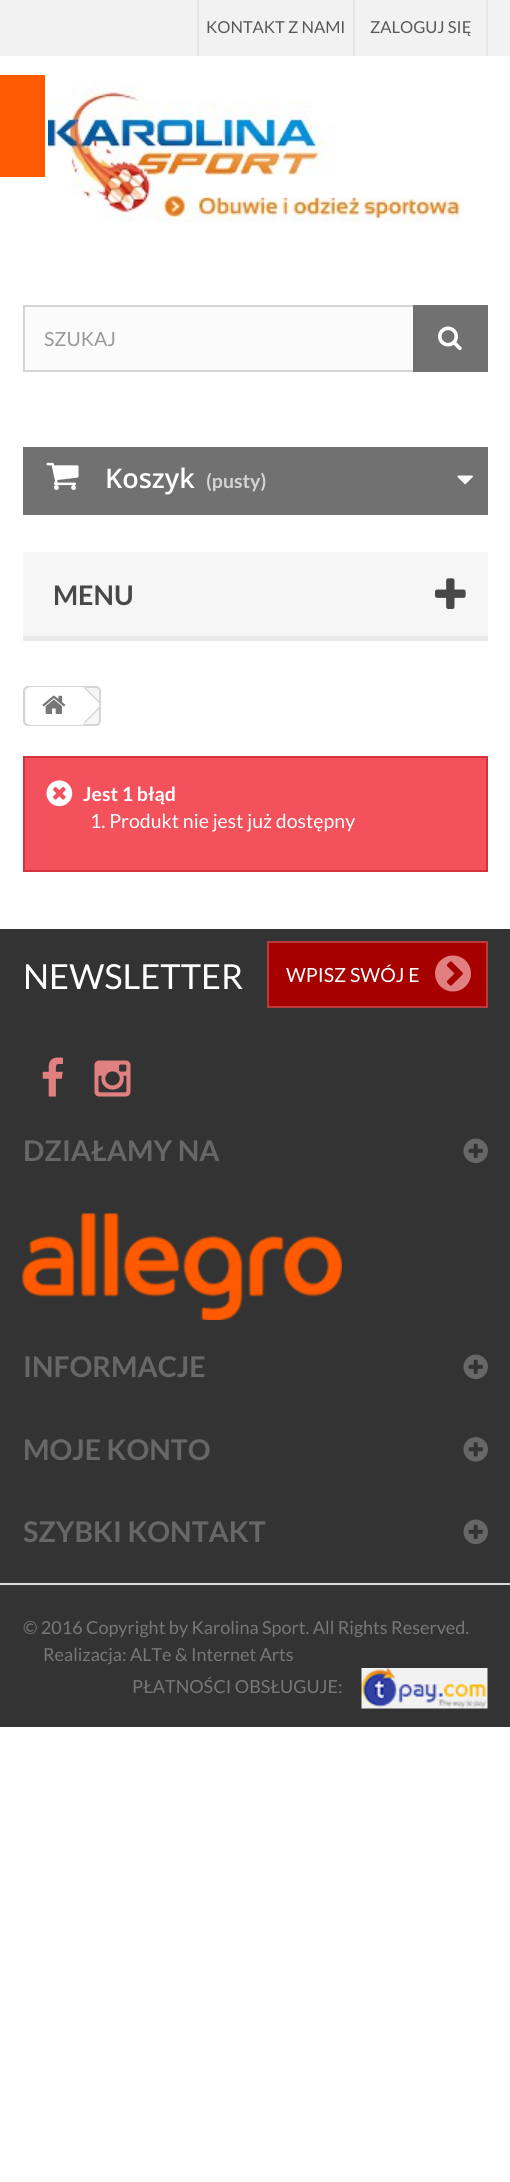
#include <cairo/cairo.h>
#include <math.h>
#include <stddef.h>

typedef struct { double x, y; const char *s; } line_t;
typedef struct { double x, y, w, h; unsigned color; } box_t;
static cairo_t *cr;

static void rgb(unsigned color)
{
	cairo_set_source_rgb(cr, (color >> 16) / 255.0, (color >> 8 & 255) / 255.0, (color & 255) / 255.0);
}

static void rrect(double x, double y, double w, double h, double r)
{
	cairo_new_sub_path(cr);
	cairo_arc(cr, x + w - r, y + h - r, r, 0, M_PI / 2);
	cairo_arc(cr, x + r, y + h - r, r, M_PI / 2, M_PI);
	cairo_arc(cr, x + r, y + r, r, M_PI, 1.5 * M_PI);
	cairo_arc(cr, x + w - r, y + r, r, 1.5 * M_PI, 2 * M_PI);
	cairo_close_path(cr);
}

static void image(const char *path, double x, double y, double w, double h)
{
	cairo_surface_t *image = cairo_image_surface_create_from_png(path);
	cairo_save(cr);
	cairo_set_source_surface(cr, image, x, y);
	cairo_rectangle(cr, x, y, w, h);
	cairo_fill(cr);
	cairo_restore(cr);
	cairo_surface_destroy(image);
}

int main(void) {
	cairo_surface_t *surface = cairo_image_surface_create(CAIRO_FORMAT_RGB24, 510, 2182);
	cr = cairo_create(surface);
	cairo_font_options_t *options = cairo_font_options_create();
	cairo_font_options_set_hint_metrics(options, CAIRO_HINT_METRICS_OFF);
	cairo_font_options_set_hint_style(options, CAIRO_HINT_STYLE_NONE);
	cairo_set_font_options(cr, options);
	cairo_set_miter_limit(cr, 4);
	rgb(0xffffff);
	cairo_paint(cr);
	{
		static const box_t items[] = {
			{0, 0, 510, 56, 0xf2f2f2},
			{197, 0, 2, 56, 0xe6e6e6},
			{486, 0, 2, 56, 0xe6e6e6},
			{353, 0, 2, 56, 0xe6e6e6},
		};
		for (size_t i = 0; i < sizeof items / sizeof *items; i++) {
			rgb(items[i].color);
			cairo_rectangle(cr, items[i].x, items[i].y, items[i].w, items[i].h);
			cairo_fill(cr);
		}
	}
	image("img/1.png", 48, 78, 416, 145);
	rgb(0xfbfbfb);
	cairo_rectangle(cr, 25, 307, 388, 63);
	cairo_fill(cr);
	cairo_rectangle(cr, 24, 306, 463, 65);
	rgb(0xd6d4d4);
	cairo_stroke(cr);
	rgb(0x717171);
	cairo_rectangle(cr, 413, 305, 75, 67);
	cairo_fill(cr);
	image("img/2.png", 438, 326, 24, 25);
	cairo_rectangle(cr, 23, 447, 465, 68);
	cairo_fill(cr);
	image("img/3.png", 46, 462, 33, 28);
	image("img/4.png", 457, 475, 16, 10);
	rgb(0xf6f6f6);
	cairo_rectangle(cr, 23, 552, 465, 84);
	cairo_fill(cr);
	rgb(0xe9e9e9);
	cairo_rectangle(cr, 23, 636, 465, 5);
	cairo_fill(cr);
	image("img/5.png", 435, 578, 31, 31);
	rgb(0xf6f6f6);
	rrect(24, 687, 76, 38, 4);
	cairo_fill_preserve(cr);
	rgb(0xd6d4d4);
	cairo_stroke(cr);
	rgb(0xffffff);
	cairo_new_path(cr);
	cairo_move_to(cr, 31, 687);
	cairo_line_to(cr, 83, 687);
	cairo_line_to(cr, 83, 725);
	cairo_line_to(cr, 31, 725);
	cairo_curve_to(cr, 28, 725, 26, 723, 26, 720);
	cairo_line_to(cr, 26, 692);
	cairo_curve_to(cr, 26, 689, 28, 687, 31, 687);
	cairo_close_path(cr);
	cairo_fill(cr);
	image("img/6.png", 42, 695, 24, 19);
	cairo_new_path(cr);
	cairo_move_to(cr, 86, 688);
	cairo_line_to(cr, 99, 701);
	cairo_line_to(cr, 99, 709);
	cairo_line_to(cr, 86, 722);
	cairo_curve_to(cr, 85, 723, 83, 723, 82, 722);
	cairo_line_to(cr, 67, 707);
	cairo_curve_to(cr, 66, 706, 66, 704, 67, 703);
	cairo_line_to(cr, 82, 688);
	cairo_curve_to(cr, 83, 687, 85, 687, 86, 688);
	cairo_close_path(cr);
	cairo_fill(cr);
	rgb(0xd6d4d4);
	cairo_new_path(cr);
	cairo_move_to(cr, 85, 687);
	cairo_line_to(cr, 99, 701);
	cairo_line_to(cr, 99, 703);
	cairo_line_to(cr, 84, 688);
	cairo_close_path(cr);
	cairo_move_to(cr, 99, 707);
	cairo_line_to(cr, 99, 709);
	cairo_line_to(cr, 85, 723);
	cairo_line_to(cr, 84, 722);
	cairo_close_path(cr);
	cairo_fill(cr);
	rgb(0xf3515c);
	cairo_rectangle(cr, 24, 757, 463, 114);
	cairo_fill_preserve(cr);
	rgb(0xd4323d);
	cairo_stroke(cr);
	image("img/7.png", 46, 780, 27, 27);
	rgb(0x333333);
	cairo_rectangle(cr, 0, 929, 510, 798);
	cairo_fill(cr);
	rgb(0xff5a00);
	cairo_rectangle(cr, 0, 75, 45, 102);
	cairo_fill(cr);
	rgb(0xa60000);
	cairo_rectangle(cr, 268, 942, 219, 65);
	cairo_fill_preserve(cr);
	rgb(0xbc3939);
	cairo_stroke(cr);
	image("img/8.png", 435, 955, 36, 37);
	image("img/9.png", 42, 1057, 21, 40);
	image("img/10.png", 94, 1060, 37, 37);
	image("img/11.png", 463, 1138, 25, 25);
	image("img/12.png", 22, 1213, 320, 107);
	image("img/11.png", 463, 1354, 25, 25);
	image("img/13.png", 463, 1437, 25, 25);
	image("img/11.png", 463, 1519, 25, 25);
	rgb(0xd8d7d7);
	cairo_rectangle(cr, 0, 1583, 510, 2);
	cairo_fill(cr);
	image("img/14.png", 361, 1668, 127, 41);
	cairo_select_font_face(cr, "Lato", CAIRO_FONT_SLANT_NORMAL, CAIRO_FONT_WEIGHT_NORMAL);
	cairo_set_font_size(cr, 16.5);
	rgb(0x59585b);
	cairo_move_to(cr, 206, 33);
	cairo_show_text(cr, "KONTAKT Z NAMI");
	cairo_move_to(cr, 370, 33);
	cairo_show_text(cr, "ZALOGUJ SIĘ");
	cairo_set_font_size(cr, 19.5);
	rgb(0x999999);
	cairo_move_to(cr, 44, 346);
	cairo_show_text(cr, "SZUKAJ");
	cairo_select_font_face(cr, "Open Sans SemiBold", CAIRO_FONT_SLANT_NORMAL, CAIRO_FONT_WEIGHT_NORMAL);
	cairo_set_font_size(cr, 27);
	rgb(0xffffff);
	cairo_move_to(cr, 105, 488);
	cairo_show_text(cr, "Koszyk");
	cairo_select_font_face(cr, "Lato", CAIRO_FONT_SLANT_NORMAL, CAIRO_FONT_WEIGHT_BOLD);
	cairo_set_font_size(cr, 19.5);
	rgb(0xd4d4d4);
	cairo_move_to(cr, 206, 488);
	cairo_show_text(cr, "(pusty)");
	cairo_set_font_size(cr, 27);
	rgb(0x484848);
	cairo_move_to(cr, 53, 605);
	cairo_show_text(cr, "MENU");
	cairo_set_font_size(cr, 19.5);
	rgb(0xffffff);
	cairo_move_to(cr, 83, 801);
	cairo_show_text(cr, "Jest 1 błąd");
	cairo_select_font_face(cr, "Lato", CAIRO_FONT_SLANT_NORMAL, CAIRO_FONT_WEIGHT_NORMAL);
	cairo_move_to(cr, 90, 828);
	cairo_show_text(cr, "1. Produkt nie jest już dostępny");
	cairo_set_font_size(cr, 34.5);
	cairo_move_to(cr, 23, 989);
	cairo_show_text(cr, "NEWSLETTER");
	cairo_set_font_size(cr, 19.5);
	cairo_move_to(cr, 286, 982);
	cairo_show_text(cr, "WPISZ SWÓJ E");
	cairo_select_font_face(cr, "Lato", CAIRO_FONT_SLANT_NORMAL, CAIRO_FONT_WEIGHT_BOLD);
	cairo_set_font_size(cr, 28.5);
	rgb(0x676767);
	{
		static const line_t items[] = {
			{23, 1161, "DZIAŁAMY NA"},
			{23, 1377, "INFORMACJE"},
			{23, 1460, "MOJE KONTO"},
			{23, 1542, "SZYBKI KONTAKT"},
		};
		for (size_t i = 0; i < sizeof items / sizeof *items; i++) {
			cairo_move_to(cr, items[i].x, items[i].y);
			cairo_show_text(cr, items[i].s);
		}
	}
	cairo_select_font_face(cr, "Lato", CAIRO_FONT_SLANT_NORMAL, CAIRO_FONT_WEIGHT_NORMAL);
	cairo_set_font_size(cr, 18);
	rgb(0x777777);
	{
		static const line_t items[] = {
			{23, 1634, "© 2016 Copyright by Karolina Sport. All Rights Reserved."},
			{43, 1661, "Realizacja: ALTe & Internet Arts"},
			{132, 1693, "PŁATNOŚCI OBSŁUGUJE:"},
		};
		for (size_t i = 0; i < sizeof items / sizeof *items; i++) {
			cairo_move_to(cr, items[i].x, items[i].y);
			cairo_show_text(cr, items[i].s);
		}
	}
	cairo_surface_write_to_png(surface, "page.png");
	cairo_font_options_destroy(options);
	cairo_destroy(cr);
	cairo_surface_destroy(surface);
	return 0;
}
